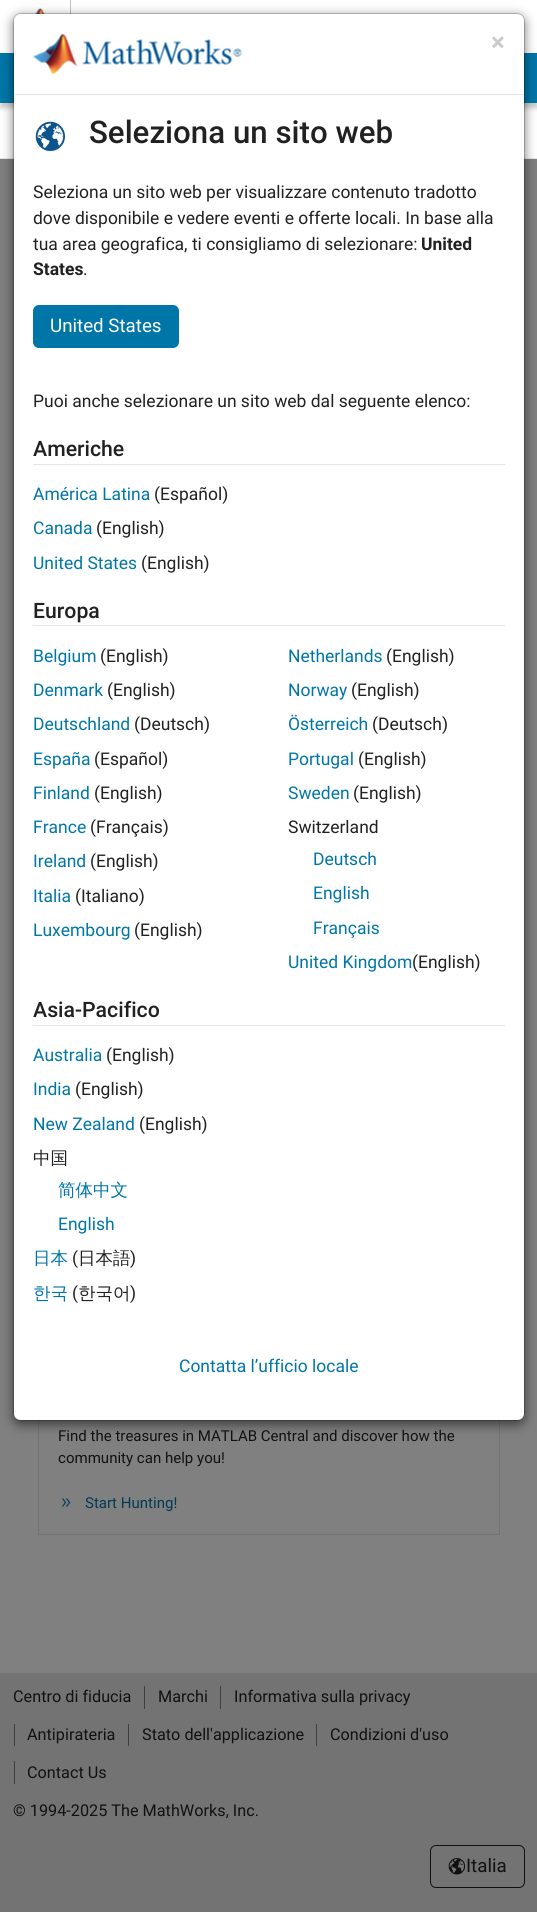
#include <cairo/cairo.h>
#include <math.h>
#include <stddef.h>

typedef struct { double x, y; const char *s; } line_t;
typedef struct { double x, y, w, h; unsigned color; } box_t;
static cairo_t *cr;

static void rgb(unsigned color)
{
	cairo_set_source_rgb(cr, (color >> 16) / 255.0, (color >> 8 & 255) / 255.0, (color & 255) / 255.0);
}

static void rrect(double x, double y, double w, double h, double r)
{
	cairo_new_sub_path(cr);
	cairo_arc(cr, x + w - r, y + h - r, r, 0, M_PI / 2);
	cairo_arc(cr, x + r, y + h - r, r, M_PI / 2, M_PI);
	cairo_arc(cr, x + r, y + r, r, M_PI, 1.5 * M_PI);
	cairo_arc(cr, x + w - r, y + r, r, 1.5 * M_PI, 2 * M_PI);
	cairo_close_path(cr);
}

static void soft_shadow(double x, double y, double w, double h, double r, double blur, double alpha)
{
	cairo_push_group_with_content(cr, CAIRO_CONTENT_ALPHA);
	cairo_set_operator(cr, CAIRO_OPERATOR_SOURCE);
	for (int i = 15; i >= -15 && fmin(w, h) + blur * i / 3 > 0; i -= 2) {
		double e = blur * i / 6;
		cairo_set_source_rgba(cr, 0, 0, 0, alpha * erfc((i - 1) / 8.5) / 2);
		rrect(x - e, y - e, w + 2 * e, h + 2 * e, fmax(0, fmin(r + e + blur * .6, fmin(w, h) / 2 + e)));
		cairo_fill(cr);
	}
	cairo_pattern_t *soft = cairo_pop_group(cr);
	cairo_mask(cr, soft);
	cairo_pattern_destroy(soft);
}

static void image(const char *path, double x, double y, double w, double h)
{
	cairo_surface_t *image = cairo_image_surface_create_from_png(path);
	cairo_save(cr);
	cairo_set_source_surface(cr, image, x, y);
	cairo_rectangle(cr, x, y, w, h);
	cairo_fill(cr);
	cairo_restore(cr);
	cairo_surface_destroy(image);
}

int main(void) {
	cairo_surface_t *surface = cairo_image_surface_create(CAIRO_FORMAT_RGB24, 537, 1912);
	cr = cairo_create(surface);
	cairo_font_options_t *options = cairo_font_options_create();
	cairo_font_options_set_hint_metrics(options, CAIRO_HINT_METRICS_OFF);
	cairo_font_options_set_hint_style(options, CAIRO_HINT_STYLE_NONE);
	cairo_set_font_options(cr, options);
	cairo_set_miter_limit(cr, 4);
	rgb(0x737373);
	cairo_paint(cr);
	rgb(0xffffff);
	cairo_rectangle(cr, 0, 0, 537, 53);
	cairo_fill(cr);
	rgb(0xbfbfbf);
	cairo_rectangle(cr, 70, 0, 1, 14);
	cairo_fill(cr);
	image("img/1.png", 13, 8, 32, 21);
	rgb(0xffffff);
	cairo_rectangle(cr, 0, 103, 537, 55);
	cairo_fill(cr);
	rgb(0x000000);
	soft_shadow(0, 58, 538, 50, 0, 2.5, 0.2);
	{
		static const box_t items[] = {
			{0, 53, 14, 50, 0x0076a8},
			{524, 53, 13, 50, 0x0076a8},
			{0, 158, 537, 1, 0xe6e6e6},
			{0, 159, 537, 1514, 0x808080},
		};
		for (size_t i = 0; i < sizeof items / sizeof *items; i++) {
			rgb(items[i].color);
			cairo_rectangle(cr, items[i].x, items[i].y, items[i].w, items[i].h);
			cairo_fill(cr);
		}
	}
	cairo_rectangle(cr, 38.5, 1263.5, 461, 271);
	rgb(0x737373);
	cairo_set_line_width(cr, 1);
	cairo_stroke(cr);
	rgb(0x000000);
	soft_shadow(13, 16, 512, 1409, 8, 5.5, 0.5);
	rgb(0xffffff);
	rrect(14, 14, 510, 1406, 6);
	cairo_fill(cr);
	rrect(13.5, 13.5, 511, 1407, 7.5);
	cairo_set_source_rgba(cr, 0, 0, 0, 0.2);
	cairo_stroke(cr);
	rgb(0xe5e5e5);
	cairo_rectangle(cr, 14, 94, 510, 1);
	cairo_fill(cr);
	image("img/2.png", 33, 33, 209, 42);
	image("img/3.png", 35, 121, 30, 30);
	rgb(0x0076a8);
	rrect(33, 305, 146, 43, 6);
	cairo_fill(cr);
	{
		static const box_t items[] = {
			{33, 464, 472, 1, 0xe6e6e6},
			{33, 625, 472, 1, 0xe6e6e6},
			{33, 1025, 472, 1, 0xe6e6e6},
		};
		for (size_t i = 0; i < sizeof items / sizeof *items; i++) {
			rgb(items[i].color);
			cairo_rectangle(cr, items[i].x, items[i].y, items[i].w, items[i].h);
			cairo_fill(cr);
		}
	}
	image("img/4.png", 61, 1498, 10, 9);
	{
		static const box_t items[] = {
			{144, 1686, 1, 23, 0x3f3f3f},
			{220, 1686, 1, 23, 0x3f3f3f},
			{14, 1724, 1, 22, 0x3f3f3f},
			{128, 1724, 1, 22, 0x3f3f3f},
			{316, 1724, 1, 22, 0x3f3f3f},
			{14, 1761, 1, 23, 0x3f3f3f},
		};
		for (size_t i = 0; i < sizeof items / sizeof *items; i++) {
			rgb(items[i].color);
			cairo_rectangle(cr, items[i].x, items[i].y, items[i].w, items[i].h);
			cairo_fill(cr);
		}
	}
	rrect(430.5, 1845.5, 94, 42, 5.5);
	rgb(0x111111);
	cairo_stroke(cr);
	image("img/5.png", 448, 1858, 18, 17);
	cairo_select_font_face(cr, "Roboto", CAIRO_FONT_SLANT_NORMAL, CAIRO_FONT_WEIGHT_BOLD);
	cairo_set_font_size(cr, 26);
	rgb(0xcccccc);
	cairo_move_to(cr, 491, 51);
	cairo_show_text(cr, "×");
	cairo_select_font_face(cr, "Roboto Medium", CAIRO_FONT_SLANT_NORMAL, CAIRO_FONT_WEIGHT_NORMAL);
	cairo_set_font_size(cr, 31.25);
	rgb(0x212121);
	cairo_move_to(cr, 89, 143);
	cairo_show_text(cr, "Seleziona un sito web");
	cairo_select_font_face(cr, "Roboto", CAIRO_FONT_SLANT_NORMAL, CAIRO_FONT_WEIGHT_NORMAL);
	cairo_set_font_size(cr, 17.5);
	{
		static const line_t items[] = {
			{33, 198, "Seleziona un sito web per visualizzare contenuto tradotto"},
			{33, 224, "dove disponibile e vedere eventi e offerte locali. In base alla"},
			{33, 250, "tua area geografica, ti consigliamo di selezionare:"},
		};
		for (size_t i = 0; i < sizeof items / sizeof *items; i++) {
			cairo_move_to(cr, items[i].x, items[i].y);
			cairo_show_text(cr, items[i].s);
		}
	}
	cairo_select_font_face(cr, "Roboto", CAIRO_FONT_SLANT_NORMAL, CAIRO_FONT_WEIGHT_BOLD);
	cairo_move_to(cr, 421, 250);
	cairo_show_text(cr, "United");
	cairo_move_to(cr, 33, 275);
	cairo_show_text(cr, "States");
	cairo_select_font_face(cr, "Roboto", CAIRO_FONT_SLANT_NORMAL, CAIRO_FONT_WEIGHT_NORMAL);
	cairo_move_to(cr, 83, 275);
	cairo_show_text(cr, ".");
	cairo_set_font_size(cr, 18.75);
	rgb(0xffffff);
	cairo_move_to(cr, 50, 332);
	cairo_show_text(cr, "United States");
	cairo_set_font_size(cr, 17.5);
	rgb(0x212121);
	cairo_move_to(cr, 33, 407);
	cairo_show_text(cr, "Puoi anche selezionare un sito web dal seguente elenco:");
	cairo_select_font_face(cr, "Roboto Medium", CAIRO_FONT_SLANT_NORMAL, CAIRO_FONT_WEIGHT_NORMAL);
	cairo_set_font_size(cr, 21.25);
	cairo_move_to(cr, 33, 456);
	cairo_show_text(cr, "Americhe");
	cairo_select_font_face(cr, "Roboto", CAIRO_FONT_SLANT_NORMAL, CAIRO_FONT_WEIGHT_NORMAL);
	cairo_set_font_size(cr, 17.5);
	rgb(0x0076a8);
	cairo_move_to(cr, 33, 500);
	cairo_show_text(cr, "América Latina");
	rgb(0x212121);
	cairo_move_to(cr, 154, 500);
	cairo_show_text(cr, "(Español)");
	rgb(0x0076a8);
	cairo_move_to(cr, 33, 534);
	cairo_show_text(cr, "Canada");
	rgb(0x212121);
	cairo_move_to(cr, 96, 534);
	cairo_show_text(cr, "(English)");
	rgb(0x0076a8);
	cairo_move_to(cr, 33, 569);
	cairo_show_text(cr, "United States");
	rgb(0x212121);
	cairo_move_to(cr, 141, 569);
	cairo_show_text(cr, "(English)");
	cairo_select_font_face(cr, "Roboto Medium", CAIRO_FONT_SLANT_NORMAL, CAIRO_FONT_WEIGHT_NORMAL);
	cairo_set_font_size(cr, 21.25);
	cairo_move_to(cr, 33, 618);
	cairo_show_text(cr, "Europa");
	cairo_select_font_face(cr, "Roboto", CAIRO_FONT_SLANT_NORMAL, CAIRO_FONT_WEIGHT_NORMAL);
	cairo_set_font_size(cr, 17.5);
	rgb(0x0076a8);
	cairo_move_to(cr, 33, 662);
	cairo_show_text(cr, "Belgium");
	rgb(0x212121);
	cairo_move_to(cr, 100, 662);
	cairo_show_text(cr, "(English)");
	rgb(0x0076a8);
	cairo_move_to(cr, 33, 696);
	cairo_show_text(cr, "Denmark");
	rgb(0x212121);
	cairo_move_to(cr, 107, 696);
	cairo_show_text(cr, "(English)");
	rgb(0x0076a8);
	cairo_move_to(cr, 33, 730);
	cairo_show_text(cr, "Deutschland");
	rgb(0x212121);
	cairo_move_to(cr, 134, 730);
	cairo_show_text(cr, "(Deutsch)");
	rgb(0x0076a8);
	cairo_move_to(cr, 33, 765);
	cairo_show_text(cr, "España");
	rgb(0x212121);
	cairo_move_to(cr, 94, 765);
	cairo_show_text(cr, "(Español)");
	rgb(0x0076a8);
	cairo_move_to(cr, 33, 799);
	cairo_show_text(cr, "Finland");
	rgb(0x212121);
	cairo_move_to(cr, 94, 799);
	cairo_show_text(cr, "(English)");
	rgb(0x0076a8);
	cairo_move_to(cr, 33, 833);
	cairo_show_text(cr, "France");
	rgb(0x212121);
	cairo_move_to(cr, 90, 833);
	cairo_show_text(cr, "(Français)");
	rgb(0x0076a8);
	cairo_move_to(cr, 33, 867);
	cairo_show_text(cr, "Ireland");
	rgb(0x212121);
	cairo_move_to(cr, 90, 867);
	cairo_show_text(cr, "(English)");
	rgb(0x0076a8);
	cairo_move_to(cr, 33, 902);
	cairo_show_text(cr, "Italia");
	rgb(0x212121);
	cairo_move_to(cr, 75, 902);
	cairo_show_text(cr, "(Italiano)");
	rgb(0x0076a8);
	cairo_move_to(cr, 33, 936);
	cairo_show_text(cr, "Luxembourg");
	rgb(0x212121);
	cairo_move_to(cr, 134, 936);
	cairo_show_text(cr, "(English)");
	rgb(0x0076a8);
	cairo_move_to(cr, 288, 662);
	cairo_show_text(cr, "Netherlands");
	rgb(0x212121);
	cairo_move_to(cr, 386, 662);
	cairo_show_text(cr, "(English)");
	rgb(0x0076a8);
	cairo_move_to(cr, 288, 696);
	cairo_show_text(cr, "Norway");
	rgb(0x212121);
	cairo_move_to(cr, 351, 696);
	cairo_show_text(cr, "(English)");
	rgb(0x0076a8);
	cairo_move_to(cr, 288, 730);
	cairo_show_text(cr, "Österreich");
	rgb(0x212121);
	cairo_move_to(cr, 372, 730);
	cairo_show_text(cr, "(Deutsch)");
	rgb(0x0076a8);
	cairo_move_to(cr, 288, 765);
	cairo_show_text(cr, "Portugal");
	rgb(0x212121);
	cairo_move_to(cr, 358, 765);
	cairo_show_text(cr, "(English)");
	rgb(0x0076a8);
	cairo_move_to(cr, 288, 799);
	cairo_show_text(cr, "Sweden");
	rgb(0x212121);
	cairo_move_to(cr, 353, 799);
	cairo_show_text(cr, "(English)");
	cairo_move_to(cr, 288, 833);
	cairo_show_text(cr, "Switzerland");
	rgb(0x0076a8);
	{
		static const line_t items[] = {
			{313, 865, "Deutsch"},
			{313, 899, "English"},
			{313, 934, "Français"},
			{288, 968, "United Kingdom"},
		};
		for (size_t i = 0; i < sizeof items / sizeof *items; i++) {
			cairo_move_to(cr, items[i].x, items[i].y);
			cairo_show_text(cr, items[i].s);
		}
	}
	rgb(0x212121);
	cairo_move_to(cr, 412, 968);
	cairo_show_text(cr, "(English)");
	cairo_select_font_face(cr, "Roboto Medium", CAIRO_FONT_SLANT_NORMAL, CAIRO_FONT_WEIGHT_NORMAL);
	cairo_set_font_size(cr, 21.25);
	cairo_move_to(cr, 33, 1017);
	cairo_show_text(cr, "Asia-Pacifico");
	cairo_select_font_face(cr, "Roboto", CAIRO_FONT_SLANT_NORMAL, CAIRO_FONT_WEIGHT_NORMAL);
	cairo_set_font_size(cr, 17.5);
	rgb(0x0076a8);
	cairo_move_to(cr, 33, 1061);
	cairo_show_text(cr, "Australia");
	rgb(0x212121);
	cairo_move_to(cr, 106, 1061);
	cairo_show_text(cr, "(English)");
	rgb(0x0076a8);
	cairo_move_to(cr, 33, 1095);
	cairo_show_text(cr, "India");
	rgb(0x212121);
	cairo_move_to(cr, 75, 1095);
	cairo_show_text(cr, "(English)");
	rgb(0x0076a8);
	cairo_move_to(cr, 33, 1130);
	cairo_show_text(cr, "New Zealand");
	rgb(0x212121);
	cairo_move_to(cr, 139, 1130);
	cairo_show_text(cr, "(English)");
	cairo_select_font_face(cr, "WenQuanYi Zen Hei Medium", CAIRO_FONT_SLANT_NORMAL, CAIRO_FONT_WEIGHT_NORMAL);
	cairo_move_to(cr, 33, 1164);
	cairo_show_text(cr, "中国");
	rgb(0x0076a8);
	cairo_move_to(cr, 58, 1196);
	cairo_show_text(cr, "简体中文");
	cairo_select_font_face(cr, "Roboto", CAIRO_FONT_SLANT_NORMAL, CAIRO_FONT_WEIGHT_NORMAL);
	cairo_move_to(cr, 58, 1230);
	cairo_show_text(cr, "English");
	cairo_select_font_face(cr, "WenQuanYi Zen Hei Medium", CAIRO_FONT_SLANT_NORMAL, CAIRO_FONT_WEIGHT_NORMAL);
	cairo_move_to(cr, 33, 1264);
	cairo_show_text(cr, "日本");
	cairo_select_font_face(cr, "Roboto", CAIRO_FONT_SLANT_NORMAL, CAIRO_FONT_WEIGHT_NORMAL);
	rgb(0x212121);
	cairo_move_to(cr, 72, 1264);
	cairo_show_text(cr, "(");
	cairo_select_font_face(cr, "WenQuanYi Zen Hei Medium", CAIRO_FONT_SLANT_NORMAL, CAIRO_FONT_WEIGHT_NORMAL);
	cairo_move_to(cr, 78, 1264);
	cairo_show_text(cr, "日本語");
	cairo_select_font_face(cr, "Roboto", CAIRO_FONT_SLANT_NORMAL, CAIRO_FONT_WEIGHT_NORMAL);
	cairo_move_to(cr, 130, 1264);
	cairo_show_text(cr, ")");
	cairo_select_font_face(cr, "WenQuanYi Zen Hei Medium", CAIRO_FONT_SLANT_NORMAL, CAIRO_FONT_WEIGHT_NORMAL);
	rgb(0x0076a8);
	cairo_move_to(cr, 33, 1299);
	cairo_show_text(cr, "한국");
	cairo_select_font_face(cr, "Roboto", CAIRO_FONT_SLANT_NORMAL, CAIRO_FONT_WEIGHT_NORMAL);
	rgb(0x212121);
	cairo_move_to(cr, 72, 1299);
	cairo_show_text(cr, "(");
	cairo_select_font_face(cr, "WenQuanYi Zen Hei Medium", CAIRO_FONT_SLANT_NORMAL, CAIRO_FONT_WEIGHT_NORMAL);
	cairo_move_to(cr, 78, 1299);
	cairo_show_text(cr, "한국어");
	cairo_select_font_face(cr, "Roboto", CAIRO_FONT_SLANT_NORMAL, CAIRO_FONT_WEIGHT_NORMAL);
	cairo_move_to(cr, 130, 1299);
	cairo_show_text(cr, ")");
	rgb(0x0076a8);
	cairo_move_to(cr, 179, 1372);
	cairo_show_text(cr, "Contatta l’ufficio locale");
	cairo_set_font_size(cr, 15.05);
	rgb(0x111111);
	cairo_move_to(cr, 58, 1441);
	cairo_show_text(cr, "Find the treasures in MATLAB Central and discover how the");
	cairo_move_to(cr, 58, 1463);
	cairo_show_text(cr, "community can help you!");
	rgb(0x003b54);
	cairo_move_to(cr, 85, 1508);
	cairo_show_text(cr, "Start Hunting!");
	cairo_set_font_size(cr, 16.25);
	rgb(0x111111);
	{
		static const line_t items[] = {
			{13, 1702, "Centro di fiducia"},
			{158, 1702, "Marchi"},
			{234, 1702, "Informativa sulla privacy"},
			{27, 1740, "Antipirateria"},
			{142, 1740, "Stato dell'applicazione"},
			{330, 1740, "Condizioni d'uso"},
			{27, 1778, "Contact Us"},
			{13, 1816, "© 1994-2025 The MathWorks, Inc."},
		};
		for (size_t i = 0; i < sizeof items / sizeof *items; i++) {
			cairo_move_to(cr, items[i].x, items[i].y);
			cairo_show_text(cr, items[i].s);
		}
	}
	cairo_set_font_size(cr, 18.75);
	cairo_move_to(cr, 466, 1872);
	cairo_show_text(cr, "Italia");
	cairo_surface_write_to_png(surface, "page.png");
	cairo_font_options_destroy(options);
	cairo_destroy(cr);
	cairo_surface_destroy(surface);
	return 0;
}
